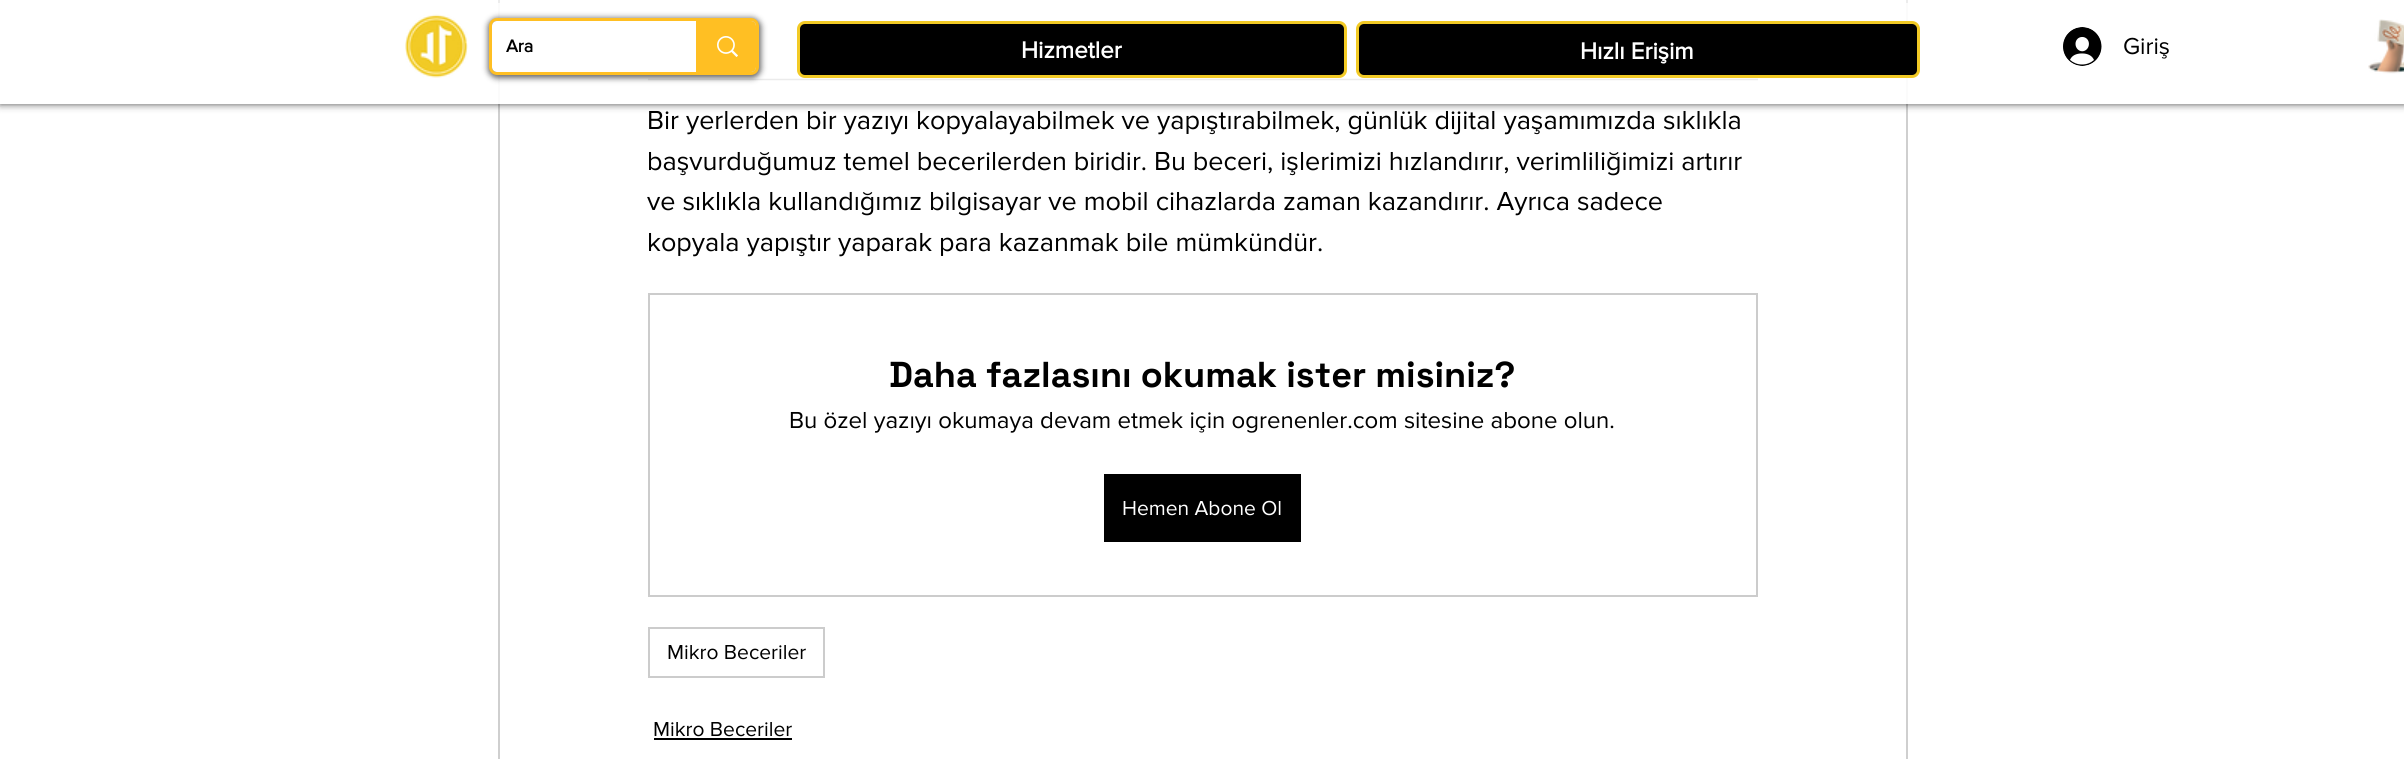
#include <cairo/cairo.h>
#include <math.h>
#include <stddef.h>

typedef struct { double x, y; const char *s; } line_t;
static cairo_t *cr;

static void rgb(unsigned color)
{
	cairo_set_source_rgb(cr, (color >> 16) / 255.0, (color >> 8 & 255) / 255.0, (color & 255) / 255.0);
}

static void rrect(double x, double y, double w, double h, double r)
{
	cairo_new_sub_path(cr);
	cairo_arc(cr, x + w - r, y + h - r, r, 0, M_PI / 2);
	cairo_arc(cr, x + r, y + h - r, r, M_PI / 2, M_PI);
	cairo_arc(cr, x + r, y + r, r, M_PI, 1.5 * M_PI);
	cairo_arc(cr, x + w - r, y + r, r, 1.5 * M_PI, 2 * M_PI);
	cairo_close_path(cr);
}

static void soft_shadow(double x, double y, double w, double h, double r, double blur, double alpha)
{
	cairo_push_group_with_content(cr, CAIRO_CONTENT_ALPHA);
	cairo_set_operator(cr, CAIRO_OPERATOR_SOURCE);
	for (int i = 15; i >= -15 && fmin(w, h) + blur * i / 3 > 0; i -= 2) {
		double e = blur * i / 6;
		cairo_set_source_rgba(cr, 0, 0, 0, alpha * erfc((i - 1) / 8.5) / 2);
		rrect(x - e, y - e, w + 2 * e, h + 2 * e, fmax(0, fmin(r + e + blur * .6, fmin(w, h) / 2 + e)));
		cairo_fill(cr);
	}
	cairo_pattern_t *soft = cairo_pop_group(cr);
	cairo_mask(cr, soft);
	cairo_pattern_destroy(soft);
}

static void image(const char *path, double x, double y, double w, double h)
{
	cairo_surface_t *image = cairo_image_surface_create_from_png(path);
	cairo_save(cr);
	cairo_set_source_surface(cr, image, x, y);
	cairo_rectangle(cr, x, y, w, h);
	cairo_fill(cr);
	cairo_restore(cr);
	cairo_surface_destroy(image);
}

int main(void) {
	cairo_surface_t *surface = cairo_image_surface_create(CAIRO_FORMAT_RGB24, 2404, 759);
	cr = cairo_create(surface);
	cairo_font_options_t *options = cairo_font_options_create();
	cairo_font_options_set_hint_metrics(options, CAIRO_HINT_METRICS_OFF);
	cairo_font_options_set_hint_style(options, CAIRO_HINT_STYLE_NONE);
	cairo_set_font_options(cr, options);
	cairo_set_miter_limit(cr, 4);
	rgb(0xffffff);
	cairo_paint(cr);
	cairo_rectangle(cr, 499, -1, 1408, 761);
	rgb(0xcfcfcf);
	cairo_stroke(cr);
	cairo_new_path(cr);
	cairo_move_to(cr, 648, 79.5);
	cairo_line_to(cr, 1758, 79.5);
	rgb(0x000000);
	cairo_set_line_width(cr, 1.5);
	cairo_stroke(cr);
	cairo_save(cr);
	cairo_set_fill_rule(cr, CAIRO_FILL_RULE_EVEN_ODD);
	cairo_new_path(cr);
	cairo_move_to(cr, 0, 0);
	cairo_line_to(cr, 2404, 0);
	cairo_line_to(cr, 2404, 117);
	cairo_line_to(cr, 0, 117);
	cairo_close_path(cr);
	cairo_move_to(cr, 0, 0);
	cairo_line_to(cr, 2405, 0);
	cairo_line_to(cr, 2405, 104);
	cairo_line_to(cr, 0, 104);
	cairo_close_path(cr);
	cairo_clip(cr);
	rgb(0x000000);
	soft_shadow(0, 0, 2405, 104, 0, 4, 0.7);
	cairo_restore(cr);
	cairo_set_source_rgba(cr, 1, 1, 1, 0.6);
	cairo_rectangle(cr, 0, 0, 2404, 104);
	cairo_fill(cr);
	cairo_set_source_rgba(cr, 1, 1, 1, 0.8);
	cairo_rectangle(cr, 0, 3, 2404, 101);
	cairo_fill(cr);
	image("img/1.png", 405, 14, 63, 64);
	rgb(0x000000);
	soft_shadow(488, 18, 273, 60, 9, 3, 0.6);
	rrect(490.5, 19.5, 267, 54, 6.5);
	rgb(0xffbf23);
	cairo_set_line_width(cr, 3);
	cairo_stroke(cr);
	rgb(0xffffff);
	rrect(492, 21, 264, 51, 5);
	cairo_fill(cr);
	rgb(0xffbf23);
	cairo_new_path(cr);
	cairo_move_to(cr, 696, 21);
	cairo_line_to(cr, 751, 21);
	cairo_curve_to(cr, 754, 21, 756, 23, 756, 26);
	cairo_line_to(cr, 756, 67);
	cairo_curve_to(cr, 756, 70, 754, 72, 751, 72);
	cairo_line_to(cr, 696, 72);
	cairo_close_path(cr);
	cairo_fill(cr);
	image("img/2.png", 717, 36, 21, 21);
	rgb(0x000000);
	rrect(798.5, 22.5, 547, 54, 6.5);
	cairo_fill_preserve(cr);
	rgb(0xf2ca25);
	cairo_stroke(cr);
	rgb(0x000000);
	rrect(1357.5, 22.5, 561, 54, 6.5);
	cairo_fill_preserve(cr);
	rgb(0xf2ca25);
	cairo_stroke(cr);
	image("img/3.png", 2063, 27, 39, 39);
	image("img/4.png", 2368, 19, 36, 55);
	cairo_rectangle(cr, 649, 294, 1108, 302);
	rgb(0xcccccc);
	cairo_set_line_width(cr, 2);
	cairo_stroke(cr);
	rgb(0x000000);
	cairo_rectangle(cr, 1104, 474, 197, 68);
	cairo_fill(cr);
	cairo_rectangle(cr, 649, 628, 175, 49);
	rgb(0xcccccc);
	cairo_stroke(cr);
	rgb(0x000000);
	cairo_rectangle(cr, 654, 738, 138, 2);
	cairo_fill(cr);
	cairo_select_font_face(cr, "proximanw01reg", CAIRO_FONT_SLANT_NORMAL, CAIRO_FONT_WEIGHT_BOLD);
	cairo_set_font_size(cr, 18);
	cairo_move_to(cr, 506, 52);
	cairo_show_text(cr, "Ara");
	cairo_set_font_size(cr, 24);
	rgb(0xffffff);
	cairo_move_to(cr, 1021, 58);
	cairo_show_text(cr, "Hizmetler");
	cairo_move_to(cr, 1580, 59);
	cairo_show_text(cr, "Hızlı Erişim");
	cairo_select_font_face(cr, "proximanw01reg", CAIRO_FONT_SLANT_NORMAL, CAIRO_FONT_WEIGHT_NORMAL);
	rgb(0x000000);
	cairo_move_to(cr, 2123, 54);
	cairo_show_text(cr, "Giriş");
	cairo_set_font_size(cr, 27);
	{
		static const line_t items[] = {
			{647, 129, "Bir yerlerden bir yazıyı kopyalayabilmek ve yapıştırabilmek, günlük dijital yaşamımızda sıklıkla"},
			{647, 170, "başvurduğumuz temel becerilerden biridir. Bu beceri, işlerimizi hızlandırır, verimliliğimizi artırır"},
			{647, 210, "ve sıklıkla kullandığımız bilgisayar ve mobil cihazlarda zaman kazandırır. Ayrıca sadece"},
			{647, 251, "kopyala yapıştır yaparak para kazanmak bile mümkündür."},
		};
		for (size_t i = 0; i < sizeof items / sizeof *items; i++) {
			cairo_move_to(cr, items[i].x, items[i].y);
			cairo_show_text(cr, items[i].s);
		}
	}
	cairo_select_font_face(cr, "Space Grotesk", CAIRO_FONT_SLANT_NORMAL, CAIRO_FONT_WEIGHT_BOLD);
	cairo_set_font_size(cr, 36);
	cairo_move_to(cr, 889, 387);
	cairo_show_text(cr, "Daha fazlasını okumak ister misiniz?");
	cairo_select_font_face(cr, "proximanw01reg", CAIRO_FONT_SLANT_NORMAL, CAIRO_FONT_WEIGHT_NORMAL);
	cairo_set_font_size(cr, 24);
	cairo_move_to(cr, 789, 428);
	cairo_show_text(cr, "Bu özel yazıyı okumaya devam etmek için ogrenenler.com sitesine abone olun.");
	cairo_set_font_size(cr, 21);
	rgb(0xffffff);
	cairo_move_to(cr, 1122, 515);
	cairo_show_text(cr, "Hemen Abone Ol");
	rgb(0x000000);
	cairo_move_to(cr, 667, 659);
	cairo_show_text(cr, "Mikro Beceriler");
	cairo_move_to(cr, 653, 736);
	cairo_show_text(cr, "Mikro Beceriler");
	cairo_surface_write_to_png(surface, "page.png");
	cairo_font_options_destroy(options);
	cairo_destroy(cr);
	cairo_surface_destroy(surface);
	return 0;
}
